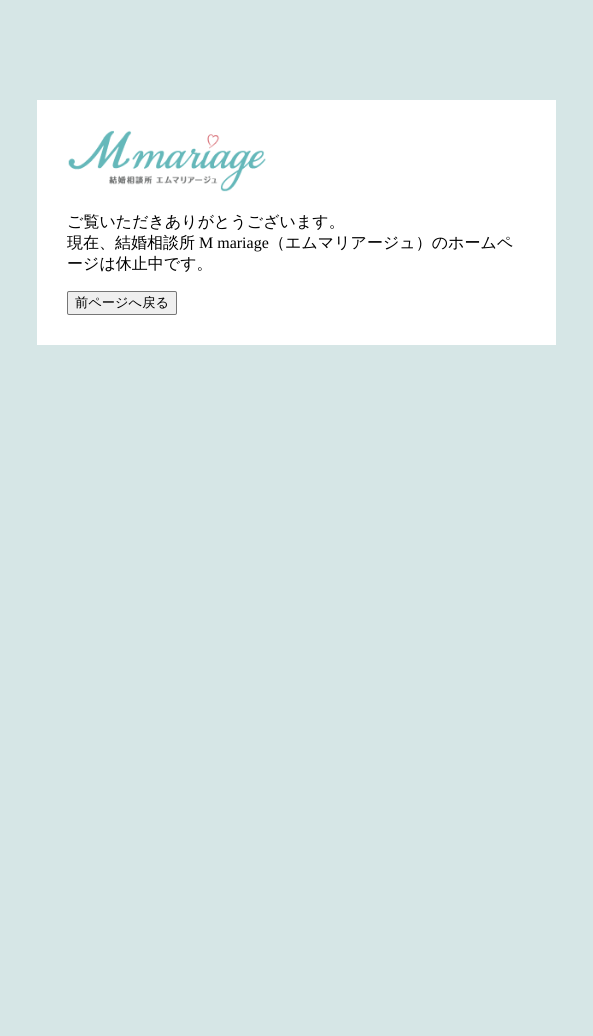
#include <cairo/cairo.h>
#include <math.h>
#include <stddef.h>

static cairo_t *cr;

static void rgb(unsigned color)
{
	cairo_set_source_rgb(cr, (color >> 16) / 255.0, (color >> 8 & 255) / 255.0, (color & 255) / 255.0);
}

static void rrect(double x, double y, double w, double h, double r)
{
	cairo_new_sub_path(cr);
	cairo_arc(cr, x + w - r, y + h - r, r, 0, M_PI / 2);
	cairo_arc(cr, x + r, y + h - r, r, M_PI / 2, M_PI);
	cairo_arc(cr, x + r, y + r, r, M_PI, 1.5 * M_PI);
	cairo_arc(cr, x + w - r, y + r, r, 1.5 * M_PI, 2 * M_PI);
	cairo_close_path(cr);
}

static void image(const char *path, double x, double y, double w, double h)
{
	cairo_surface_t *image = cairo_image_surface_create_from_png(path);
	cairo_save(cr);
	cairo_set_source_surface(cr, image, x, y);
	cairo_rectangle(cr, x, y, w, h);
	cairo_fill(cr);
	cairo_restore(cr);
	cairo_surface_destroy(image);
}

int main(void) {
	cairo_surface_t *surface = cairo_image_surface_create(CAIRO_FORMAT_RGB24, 593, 1036);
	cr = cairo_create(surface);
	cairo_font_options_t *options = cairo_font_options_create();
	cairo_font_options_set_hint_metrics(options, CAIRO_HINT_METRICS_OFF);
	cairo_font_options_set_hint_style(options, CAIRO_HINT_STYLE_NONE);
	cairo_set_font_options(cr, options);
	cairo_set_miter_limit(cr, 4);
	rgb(0xd6e6e6);
	cairo_paint(cr);
	rgb(0xffffff);
	cairo_rectangle(cr, 37, 100, 519, 245);
	cairo_fill(cr);
	image("img/1.png", 68, 130, 198, 62);
	rgb(0xefefef);
	rrect(67.5, 291.5, 109, 23, 1.5);
	cairo_fill_preserve(cr);
	rgb(0x767676);
	cairo_set_line_width(cr, 1);
	cairo_stroke(cr);
	cairo_select_font_face(cr, "WenQuanYi Zen Hei Medium", CAIRO_FONT_SLANT_NORMAL, CAIRO_FONT_WEIGHT_NORMAL);
	cairo_set_font_size(cr, 16);
	rgb(0x000000);
	cairo_move_to(cr, 67, 227);
	cairo_show_text(cr, "ご覧いただきありがとうございます。");
	cairo_move_to(cr, 67, 248);
	cairo_show_text(cr, "現在、結婚相談所");
	cairo_select_font_face(cr, "Liberation Serif", CAIRO_FONT_SLANT_NORMAL, CAIRO_FONT_WEIGHT_NORMAL);
	cairo_move_to(cr, 199, 248);
	cairo_show_text(cr, "M mariage");
	cairo_select_font_face(cr, "WenQuanYi Zen Hei Medium", CAIRO_FONT_SLANT_NORMAL, CAIRO_FONT_WEIGHT_NORMAL);
	cairo_move_to(cr, 269, 248);
	cairo_show_text(cr, "（エムマリアージュ）のホームペ");
	cairo_move_to(cr, 67, 269);
	cairo_show_text(cr, "ージは休止中です。");
	cairo_set_font_size(cr, 13.25);
	cairo_move_to(cr, 75, 307);
	cairo_show_text(cr, "前ページへ戻る");
	cairo_surface_write_to_png(surface, "page.png");
	cairo_font_options_destroy(options);
	cairo_destroy(cr);
	cairo_surface_destroy(surface);
	return 0;
}
